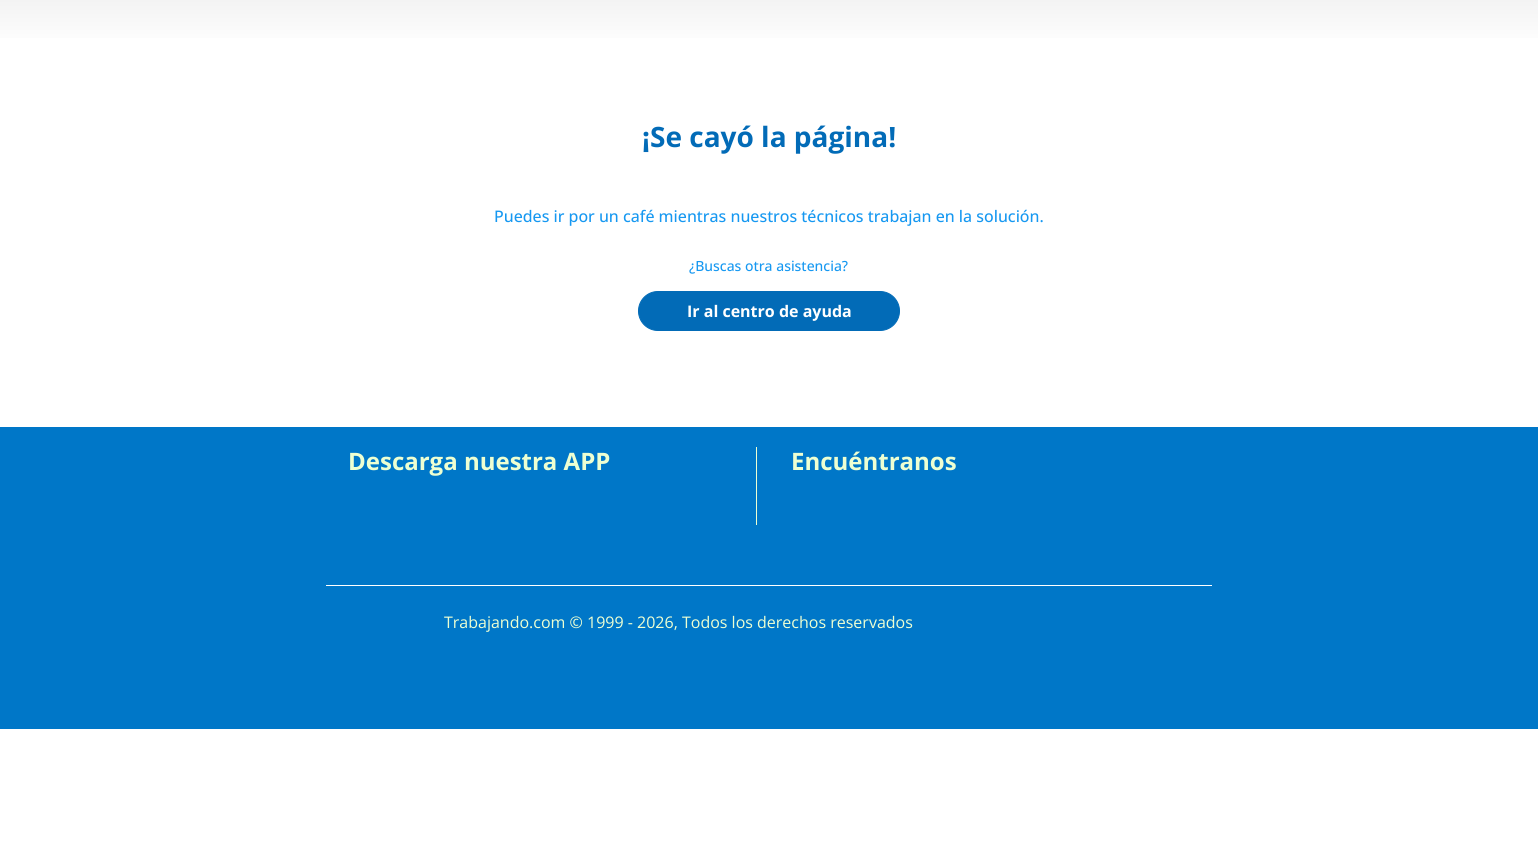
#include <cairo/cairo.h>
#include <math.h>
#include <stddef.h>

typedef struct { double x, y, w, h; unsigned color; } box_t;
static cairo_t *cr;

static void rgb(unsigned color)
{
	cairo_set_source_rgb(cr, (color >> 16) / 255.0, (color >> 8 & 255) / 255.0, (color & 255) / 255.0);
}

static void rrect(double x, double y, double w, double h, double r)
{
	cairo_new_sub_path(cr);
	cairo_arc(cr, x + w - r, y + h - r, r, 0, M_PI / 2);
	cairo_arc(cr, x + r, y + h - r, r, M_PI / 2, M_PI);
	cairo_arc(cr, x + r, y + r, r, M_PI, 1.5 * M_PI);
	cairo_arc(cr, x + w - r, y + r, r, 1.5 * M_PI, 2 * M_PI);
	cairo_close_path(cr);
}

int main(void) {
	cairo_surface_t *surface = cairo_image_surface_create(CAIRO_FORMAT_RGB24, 1538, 865);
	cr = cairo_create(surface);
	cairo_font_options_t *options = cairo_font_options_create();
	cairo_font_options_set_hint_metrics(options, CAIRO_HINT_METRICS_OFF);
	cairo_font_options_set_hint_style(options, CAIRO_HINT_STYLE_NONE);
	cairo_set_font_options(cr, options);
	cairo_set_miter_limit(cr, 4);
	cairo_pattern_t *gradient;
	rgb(0xffffff);
	cairo_paint(cr);
	gradient = cairo_pattern_create_linear(769, 0, 769, 80);
	cairo_pattern_add_color_stop_rgba(gradient, 0, 0.953, 0.953, 0.953, 1);
	cairo_pattern_add_color_stop_rgba(gradient, 0.6, 1, 1, 1, 1);
	cairo_set_source(cr, gradient);
	cairo_pattern_destroy(gradient);
	cairo_rectangle(cr, 0, 0, 1538, 38);
	cairo_fill(cr);
	rgb(0x026bb7);
	rrect(638.5, 291.5, 261, 39, 19.5);
	cairo_fill_preserve(cr);
	cairo_set_line_width(cr, 1);
	cairo_stroke(cr);
	{
		static const box_t items[] = {
			{0, 427, 1538, 302, 0x0077c8},
			{756, 447, 1, 78, 0xedffd2},
			{326, 585, 886, 1, 0xffffff},
		};
		for (size_t i = 0; i < sizeof items / sizeof *items; i++) {
			rgb(items[i].color);
			cairo_rectangle(cr, items[i].x, items[i].y, items[i].w, items[i].h);
			cairo_fill(cr);
		}
	}
	cairo_select_font_face(cr, "Open Sans", CAIRO_FONT_SLANT_NORMAL, CAIRO_FONT_WEIGHT_BOLD);
	cairo_set_font_size(cr, 28);
	rgb(0x026bb7);
	cairo_move_to(cr, 642, 147);
	cairo_show_text(cr, "¡Se cayó la página!");
	cairo_select_font_face(cr, "Open Sans Medium", CAIRO_FONT_SLANT_NORMAL, CAIRO_FONT_WEIGHT_NORMAL);
	cairo_set_font_size(cr, 15.95);
	rgb(0x1698f1);
	cairo_move_to(cr, 494, 222);
	cairo_show_text(cr, "Puedes ir por un café mientras nuestros técnicos trabajan en la solución.");
	cairo_set_font_size(cr, 14);
	cairo_move_to(cr, 689, 271);
	cairo_show_text(cr, "¿Buscas otra asistencia?");
	cairo_select_font_face(cr, "Open Sans", CAIRO_FONT_SLANT_NORMAL, CAIRO_FONT_WEIGHT_BOLD);
	cairo_set_font_size(cr, 16);
	rgb(0xffffff);
	cairo_move_to(cr, 687, 317);
	cairo_show_text(cr, "Ir al centro de ayuda");
	cairo_set_font_size(cr, 24);
	rgb(0xedffd2);
	cairo_move_to(cr, 348, 470);
	cairo_show_text(cr, "Descarga nuestra APP");
	cairo_move_to(cr, 791, 470);
	cairo_show_text(cr, "Encuéntranos");
	cairo_select_font_face(cr, "Open Sans", CAIRO_FONT_SLANT_NORMAL, CAIRO_FONT_WEIGHT_NORMAL);
	cairo_set_font_size(cr, 16);
	cairo_move_to(cr, 444, 628);
	cairo_show_text(cr, "Trabajando.com © 1999 - 2026, Todos los derechos reservados");
	cairo_surface_write_to_png(surface, "page.png");
	cairo_font_options_destroy(options);
	cairo_destroy(cr);
	cairo_surface_destroy(surface);
	return 0;
}
